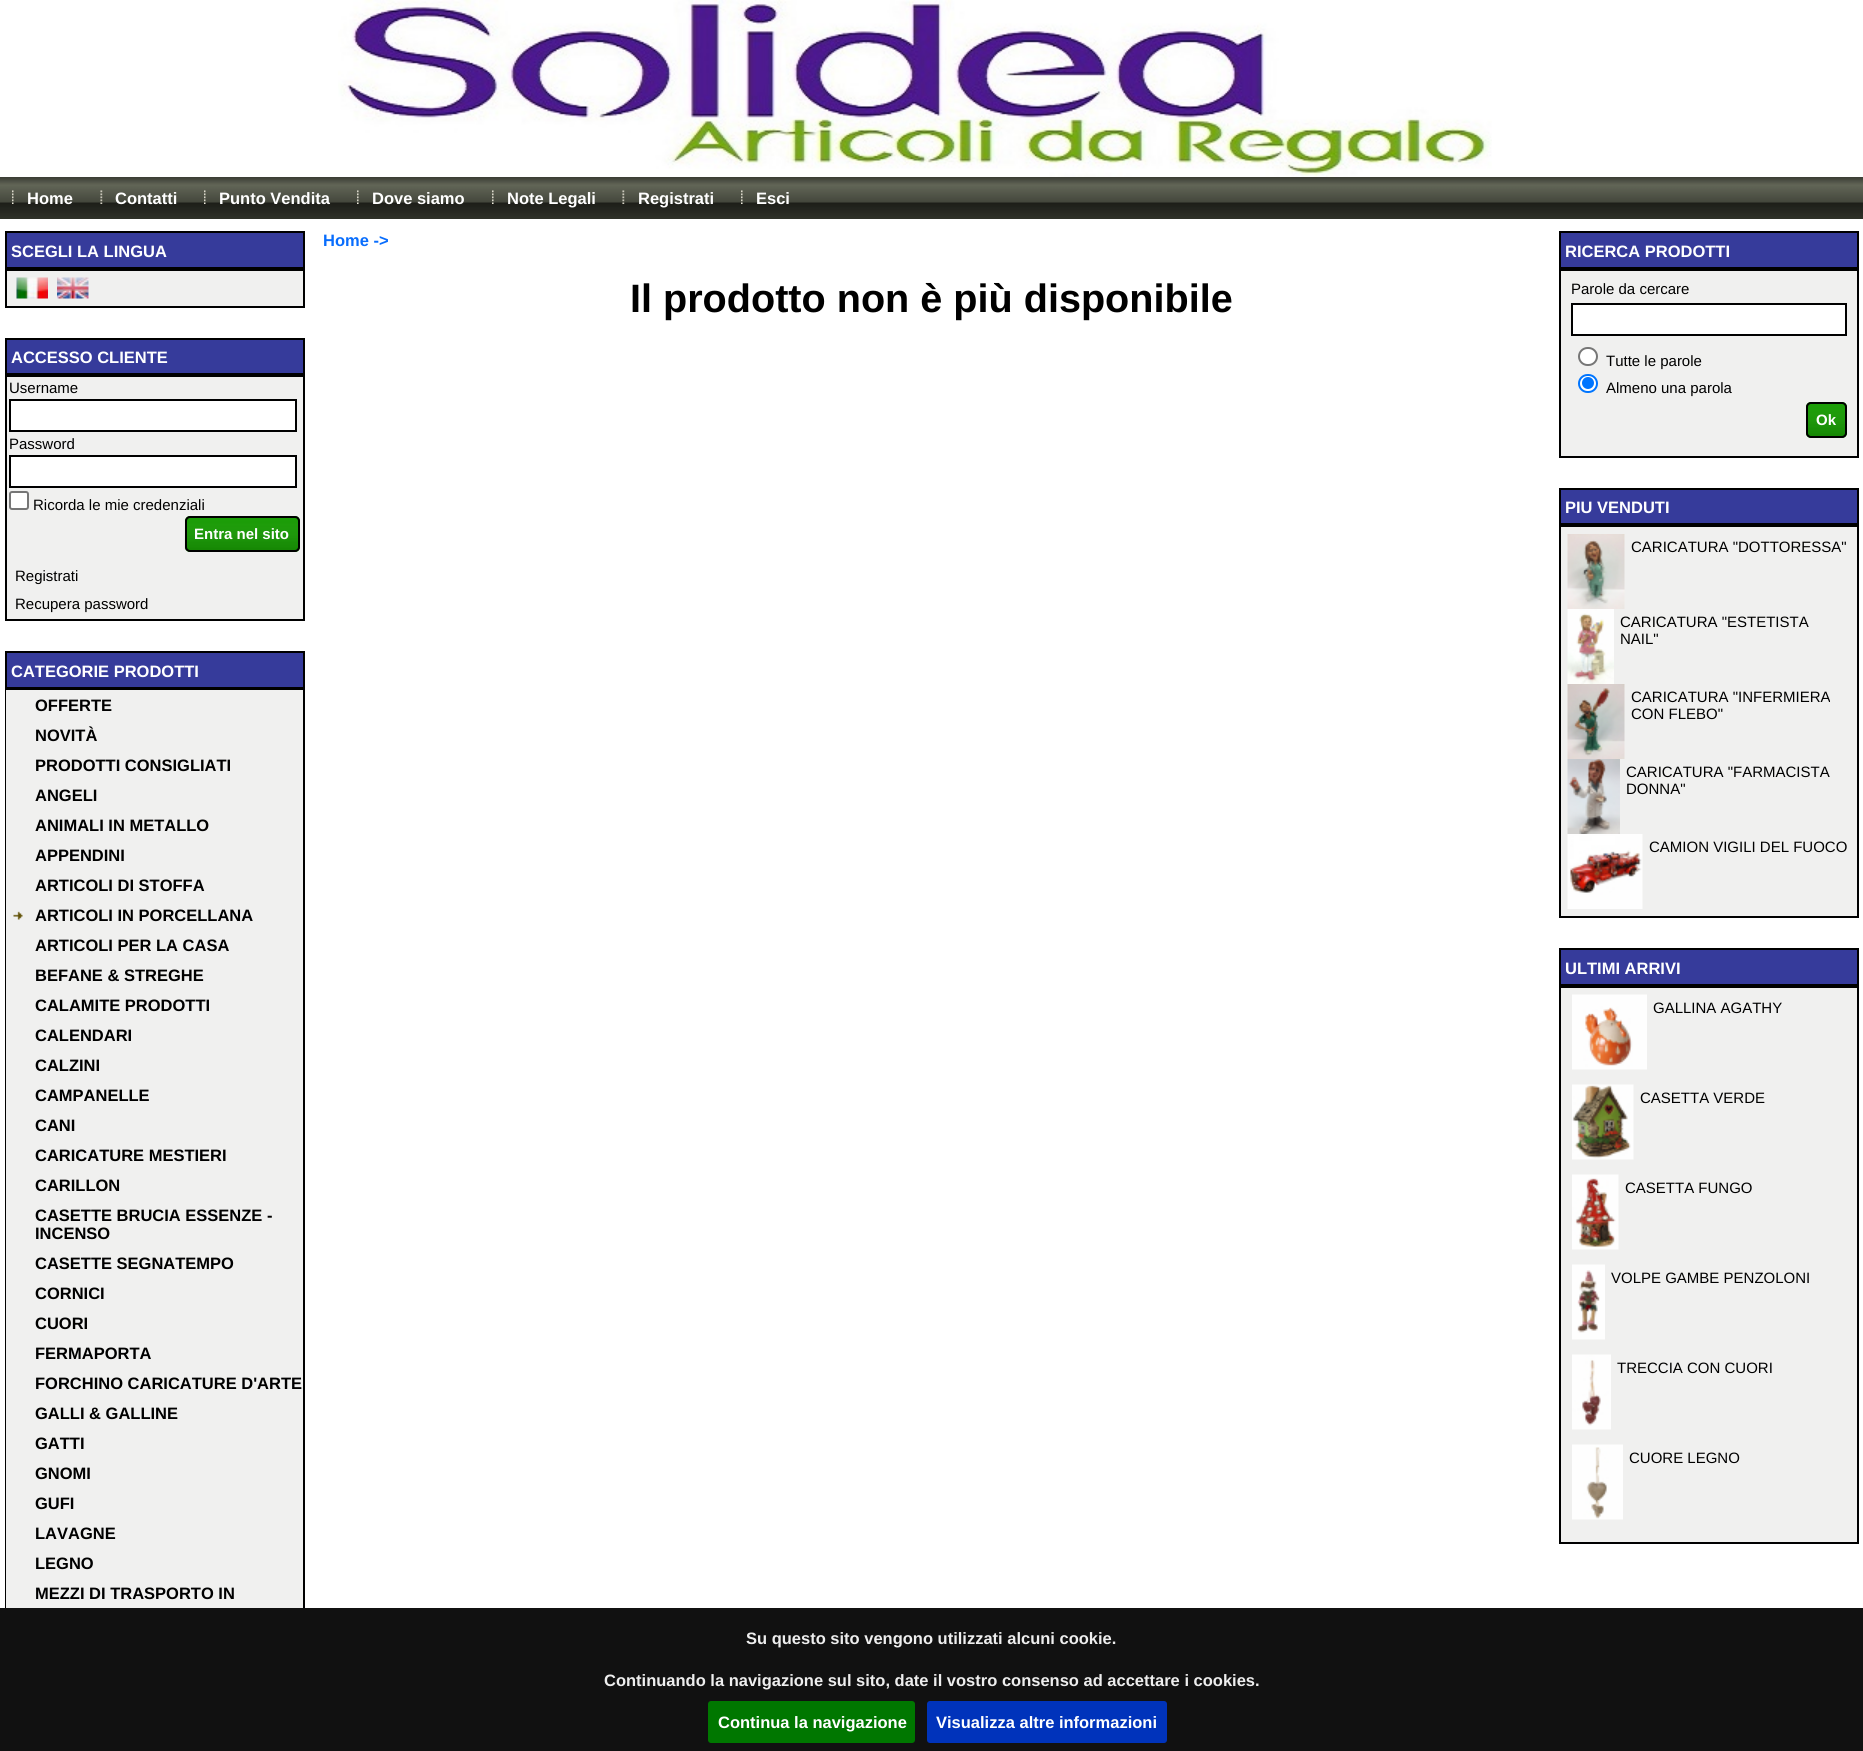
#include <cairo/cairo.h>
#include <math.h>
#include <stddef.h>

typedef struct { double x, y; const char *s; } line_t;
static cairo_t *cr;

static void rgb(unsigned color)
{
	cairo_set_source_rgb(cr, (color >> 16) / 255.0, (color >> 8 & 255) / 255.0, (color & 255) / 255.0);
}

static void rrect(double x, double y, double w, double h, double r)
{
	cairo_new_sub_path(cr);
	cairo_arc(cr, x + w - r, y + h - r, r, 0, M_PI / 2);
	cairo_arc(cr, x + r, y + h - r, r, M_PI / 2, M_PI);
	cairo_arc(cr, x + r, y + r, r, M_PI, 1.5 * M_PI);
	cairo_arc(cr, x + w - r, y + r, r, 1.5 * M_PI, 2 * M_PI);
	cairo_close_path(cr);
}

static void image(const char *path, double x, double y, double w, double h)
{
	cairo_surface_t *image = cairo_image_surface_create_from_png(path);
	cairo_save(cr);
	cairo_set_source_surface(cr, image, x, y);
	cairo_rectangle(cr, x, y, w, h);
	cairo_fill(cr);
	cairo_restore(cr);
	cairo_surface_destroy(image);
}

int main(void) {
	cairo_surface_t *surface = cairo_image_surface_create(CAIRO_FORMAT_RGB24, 1863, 1751);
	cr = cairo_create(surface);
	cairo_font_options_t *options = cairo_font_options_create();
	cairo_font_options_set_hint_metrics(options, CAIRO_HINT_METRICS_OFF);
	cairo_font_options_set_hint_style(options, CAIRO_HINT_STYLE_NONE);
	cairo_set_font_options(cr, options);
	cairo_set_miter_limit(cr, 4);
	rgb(0xffffff);
	cairo_paint(cr);
	image("img/1.png", 338, 0, 1154, 177);
	image("img/2.png", 0, 177, 1863, 42);
	image("img/3.png", 12, 190, 2, 14);
	image("img/4.png", 100, 190, 3, 14);
	image("img/3.png", 204, 190, 2, 14);
	image("img/5.png", 357, 190, 2, 14);
	image("img/5.png", 492, 190, 2, 14);
	image("img/4.png", 622, 190, 3, 14);
	image("img/5.png", 741, 190, 2, 14);
	rgb(0x363b9b);
	cairo_rectangle(cr, 6, 232, 298, 36);
	cairo_fill_preserve(cr);
	rgb(0x000000);
	cairo_stroke(cr);
	rgb(0xf0f0ef);
	cairo_rectangle(cr, 6, 270, 298, 37);
	cairo_fill_preserve(cr);
	rgb(0x000000);
	cairo_stroke(cr);
	image("img/6.png", 16, 277, 32, 22);
	image("img/7.png", 57, 277, 32, 22);
	rgb(0x363b9b);
	cairo_rectangle(cr, 6, 339, 298, 35);
	cairo_fill_preserve(cr);
	rgb(0x000000);
	cairo_stroke(cr);
	rgb(0xf0f0ef);
	cairo_rectangle(cr, 6, 376, 298, 244);
	cairo_fill_preserve(cr);
	rgb(0x000000);
	cairo_stroke(cr);
	rgb(0xffffff);
	cairo_rectangle(cr, 10, 400, 286, 31);
	cairo_fill_preserve(cr);
	rgb(0x000000);
	cairo_stroke(cr);
	rgb(0xffffff);
	cairo_rectangle(cr, 10, 456, 286, 31);
	cairo_fill_preserve(cr);
	rgb(0x000000);
	cairo_stroke(cr);
	rgb(0xffffff);
	rrect(10, 492, 18, 17, 2);
	cairo_fill_preserve(cr);
	rgb(0x767676);
	cairo_stroke(cr);
	rgb(0x179c02);
	rrect(185, 516, 115, 36, 5);
	cairo_fill(cr);
	image("img/8.png", 184, 518, 116, 33);
	rrect(186, 517, 113, 34, 4);
	rgb(0x000000);
	cairo_stroke(cr);
	rgb(0x363b9b);
	cairo_rectangle(cr, 6, 652, 298, 36);
	cairo_fill_preserve(cr);
	rgb(0x000000);
	cairo_stroke(cr);
	cairo_rectangle(cr, 6, 690, 298, 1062);
	cairo_stroke(cr);
	rgb(0xf0f0ef);
	cairo_rectangle(cr, 6, 690, 297, 918);
	cairo_fill(cr);
	image("img/9.png", 13, 911, 10, 9);
	rgb(0x363b9b);
	cairo_rectangle(cr, 1560, 232, 298, 36);
	cairo_fill_preserve(cr);
	rgb(0x000000);
	cairo_stroke(cr);
	rgb(0xf0f0ef);
	cairo_rectangle(cr, 1560, 270, 298, 187);
	cairo_fill_preserve(cr);
	rgb(0x000000);
	cairo_stroke(cr);
	rgb(0xffffff);
	cairo_rectangle(cr, 1572, 304, 274, 31);
	cairo_fill_preserve(cr);
	rgb(0x000000);
	cairo_stroke(cr);
	rgb(0xffffff);
	rrect(1579, 348, 18, 17, 8.5);
	cairo_fill_preserve(cr);
	rgb(0x767676);
	cairo_stroke(cr);
	rgb(0xffffff);
	rrect(1579, 375, 18, 17, 8.5);
	cairo_fill_preserve(cr);
	rgb(0x0075ff);
	cairo_stroke(cr);
	cairo_arc(cr, 1588, 383, 6, 0, 2 * M_PI);
	cairo_fill(cr);
	rgb(0x179c02);
	rrect(1806, 402, 41, 36, 5);
	cairo_fill(cr);
	image("img/10.png", 1806, 404, 41, 33);
	rrect(1807, 403, 39, 34, 4);
	rgb(0x000000);
	cairo_stroke(cr);
	rgb(0x363b9b);
	cairo_rectangle(cr, 1560, 489, 298, 35);
	cairo_fill_preserve(cr);
	rgb(0x000000);
	cairo_stroke(cr);
	rgb(0xf0f0ef);
	cairo_rectangle(cr, 1560, 526, 298, 391);
	cairo_fill_preserve(cr);
	rgb(0x000000);
	cairo_stroke(cr);
	image("img/11.png", 1567, 534, 58, 75);
	image("img/12.png", 1567, 609, 47, 75);
	image("img/13.png", 1567, 684, 58, 75);
	image("img/14.png", 1567, 759, 53, 75);
	image("img/15.png", 1567, 834, 76, 75);
	rgb(0x363b9b);
	cairo_rectangle(cr, 1560, 949, 298, 36);
	cairo_fill_preserve(cr);
	rgb(0x000000);
	cairo_stroke(cr);
	rgb(0xf0f0ef);
	cairo_rectangle(cr, 1560, 987, 298, 556);
	cairo_fill_preserve(cr);
	rgb(0x000000);
	cairo_stroke(cr);
	image("img/16.png", 1572, 994, 75, 76);
	image("img/17.png", 1572, 1084, 62, 76);
	image("img/18.png", 1572, 1174, 47, 76);
	image("img/19.png", 1572, 1264, 33, 76);
	image("img/20.png", 1572, 1354, 39, 76);
	image("img/21.png", 1572, 1444, 51, 76);
	rgb(0x111111);
	cairo_rectangle(cr, 0, 1608, 1863, 143);
	cairo_fill(cr);
	rgb(0x007700);
	rrect(708, 1701, 207, 42, 3);
	cairo_fill(cr);
	rgb(0x0033bb);
	rrect(927, 1701, 240, 42, 3);
	cairo_fill(cr);
	cairo_select_font_face(cr, "Liberation Sans", CAIRO_FONT_SLANT_NORMAL, CAIRO_FONT_WEIGHT_BOLD);
	cairo_set_font_size(cr, 16.5);
	rgb(0xffffff);
	{
		static const line_t items[] = {
			{27, 204, "Home"},
			{115, 204, "Contatti"},
			{219, 204, "Punto Vendita"},
			{372, 204, "Dove siamo"},
			{507, 204, "Note Legali"},
			{638, 204, "Registrati"},
			{756, 204, "Esci"},
			{11, 257, "SCEGLI LA LINGUA"},
			{11, 363, "ACCESSO CLIENTE"},
		};
		for (size_t i = 0; i < sizeof items / sizeof *items; i++) {
			cairo_move_to(cr, items[i].x, items[i].y);
			cairo_show_text(cr, items[i].s);
		}
	}
	cairo_select_font_face(cr, "Liberation Sans", CAIRO_FONT_SLANT_NORMAL, CAIRO_FONT_WEIGHT_NORMAL);
	cairo_set_font_size(cr, 15);
	rgb(0x000000);
	{
		static const line_t items[] = {
			{9, 393, "Username"},
			{9, 449, "Password"},
			{33, 510, "Ricorda le mie credenziali"},
		};
		for (size_t i = 0; i < sizeof items / sizeof *items; i++) {
			cairo_move_to(cr, items[i].x, items[i].y);
			cairo_show_text(cr, items[i].s);
		}
	}
	cairo_select_font_face(cr, "Liberation Sans", CAIRO_FONT_SLANT_NORMAL, CAIRO_FONT_WEIGHT_BOLD);
	rgb(0xffffff);
	cairo_move_to(cr, 194, 539);
	cairo_show_text(cr, "Entra nel sito");
	cairo_select_font_face(cr, "Liberation Sans", CAIRO_FONT_SLANT_NORMAL, CAIRO_FONT_WEIGHT_NORMAL);
	rgb(0x000000);
	cairo_move_to(cr, 15, 581);
	cairo_show_text(cr, "Registrati");
	cairo_move_to(cr, 15, 609);
	cairo_show_text(cr, "Recupera password");
	cairo_select_font_face(cr, "Liberation Sans", CAIRO_FONT_SLANT_NORMAL, CAIRO_FONT_WEIGHT_BOLD);
	cairo_set_font_size(cr, 16.5);
	rgb(0xffffff);
	cairo_move_to(cr, 11, 677);
	cairo_show_text(cr, "CATEGORIE PRODOTTI");
	rgb(0x000000);
	{
		static const line_t items[] = {
			{35, 711, "OFFERTE"},
			{35, 741, "NOVITÀ"},
			{35, 771, "PRODOTTI CONSIGLIATI"},
			{35, 801, "ANGELI"},
			{35, 831, "ANIMALI IN METALLO"},
			{35, 861, "APPENDINI"},
			{35, 891, "ARTICOLI DI STOFFA"},
			{35, 921, "ARTICOLI IN PORCELLANA"},
			{35, 951, "ARTICOLI PER LA CASA"},
			{35, 981, "BEFANE & STREGHE"},
			{35, 1011, "CALAMITE PRODOTTI"},
			{35, 1041, "CALENDARI"},
			{35, 1071, "CALZINI"},
			{35, 1101, "CAMPANELLE"},
			{35, 1131, "CANI"},
			{35, 1161, "CARICATURE MESTIERI"},
			{35, 1191, "CARILLON"},
			{35, 1221, "CASETTE BRUCIA ESSENZE -"},
			{35, 1239, "INCENSO"},
			{35, 1269, "CASETTE SEGNATEMPO"},
			{35, 1299, "CORNICI"},
			{35, 1329, "CUORI"},
			{35, 1359, "FERMAPORTA"},
			{35, 1389, "FORCHINO CARICATURE D'ARTE"},
			{35, 1419, "GALLI & GALLINE"},
			{35, 1449, "GATTI"},
			{35, 1479, "GNOMI"},
			{35, 1509, "GUFI"},
			{35, 1539, "LAVAGNE"},
			{35, 1569, "LEGNO"},
			{35, 1599, "MEZZI DI TRASPORTO IN"},
		};
		for (size_t i = 0; i < sizeof items / sizeof *items; i++) {
			cairo_move_to(cr, items[i].x, items[i].y);
			cairo_show_text(cr, items[i].s);
		}
	}
	rgb(0x086dfd);
	cairo_move_to(cr, 323, 246);
	cairo_show_text(cr, "Home ->");
	cairo_set_font_size(cr, 39.6);
	rgb(0x000000);
	cairo_move_to(cr, 630, 312);
	cairo_show_text(cr, "Il prodotto non è più disponibile");
	cairo_set_font_size(cr, 16.5);
	rgb(0xffffff);
	cairo_move_to(cr, 1565, 257);
	cairo_show_text(cr, "RICERCA PRODOTTI");
	cairo_select_font_face(cr, "Liberation Sans", CAIRO_FONT_SLANT_NORMAL, CAIRO_FONT_WEIGHT_NORMAL);
	cairo_set_font_size(cr, 15);
	rgb(0x000000);
	{
		static const line_t items[] = {
			{1571, 294, "Parole da cercare"},
			{1606, 366, "Tutte le parole"},
			{1606, 393, "Almeno una parola"},
		};
		for (size_t i = 0; i < sizeof items / sizeof *items; i++) {
			cairo_move_to(cr, items[i].x, items[i].y);
			cairo_show_text(cr, items[i].s);
		}
	}
	cairo_select_font_face(cr, "Liberation Sans", CAIRO_FONT_SLANT_NORMAL, CAIRO_FONT_WEIGHT_BOLD);
	rgb(0xffffff);
	cairo_move_to(cr, 1816, 425);
	cairo_show_text(cr, "Ok");
	cairo_set_font_size(cr, 16.5);
	cairo_move_to(cr, 1565, 513);
	cairo_show_text(cr, "PIU VENDUTI");
	cairo_select_font_face(cr, "Liberation Sans", CAIRO_FONT_SLANT_NORMAL, CAIRO_FONT_WEIGHT_NORMAL);
	cairo_set_font_size(cr, 15);
	rgb(0x000000);
	{
		static const line_t items[] = {
			{1631, 552, "CARICATURA \"DOTTORESSA\""},
			{1620, 627, "CARICATURA \"ESTETISTA"},
			{1620, 644, "NAIL\""},
			{1631, 702, "CARICATURA \"INFERMIERA"},
			{1631, 719, "CON FLEBO\""},
			{1626, 777, "CARICATURA \"FARMACISTA"},
			{1626, 794, "DONNA\""},
			{1649, 852, "CAMION VIGILI DEL FUOCO"},
		};
		for (size_t i = 0; i < sizeof items / sizeof *items; i++) {
			cairo_move_to(cr, items[i].x, items[i].y);
			cairo_show_text(cr, items[i].s);
		}
	}
	cairo_select_font_face(cr, "Liberation Sans", CAIRO_FONT_SLANT_NORMAL, CAIRO_FONT_WEIGHT_BOLD);
	cairo_set_font_size(cr, 16.5);
	rgb(0xffffff);
	cairo_move_to(cr, 1565, 974);
	cairo_show_text(cr, "ULTIMI ARRIVI");
	cairo_select_font_face(cr, "Liberation Sans", CAIRO_FONT_SLANT_NORMAL, CAIRO_FONT_WEIGHT_NORMAL);
	cairo_set_font_size(cr, 15);
	rgb(0x000000);
	{
		static const line_t items[] = {
			{1653, 1013, "GALLINA AGATHY"},
			{1640, 1103, "CASETTA VERDE"},
			{1625, 1193, "CASETTA FUNGO"},
			{1611, 1283, "VOLPE GAMBE PENZOLONI"},
			{1617, 1373, "TRECCIA CON CUORI"},
			{1629, 1463, "CUORE LEGNO"},
		};
		for (size_t i = 0; i < sizeof items / sizeof *items; i++) {
			cairo_move_to(cr, items[i].x, items[i].y);
			cairo_show_text(cr, items[i].s);
		}
	}
	cairo_select_font_face(cr, "Liberation Sans", CAIRO_FONT_SLANT_NORMAL, CAIRO_FONT_WEIGHT_BOLD);
	cairo_set_font_size(cr, 16.5);
	rgb(0xeeeeee);
	cairo_move_to(cr, 746, 1644);
	cairo_show_text(cr, "Su questo sito vengono utilizzati alcuni cookie.");
	cairo_move_to(cr, 604, 1686);
	cairo_show_text(cr, "Continuando la navigazione sul sito, date il vostro consenso ad accettare i cookies.");
	rgb(0xffffff);
	cairo_move_to(cr, 718, 1728);
	cairo_show_text(cr, "Continua la navigazione");
	cairo_move_to(cr, 936, 1728);
	cairo_show_text(cr, "Visualizza altre informazioni");
	cairo_surface_write_to_png(surface, "page.png");
	cairo_font_options_destroy(options);
	cairo_destroy(cr);
	cairo_surface_destroy(surface);
	return 0;
}
